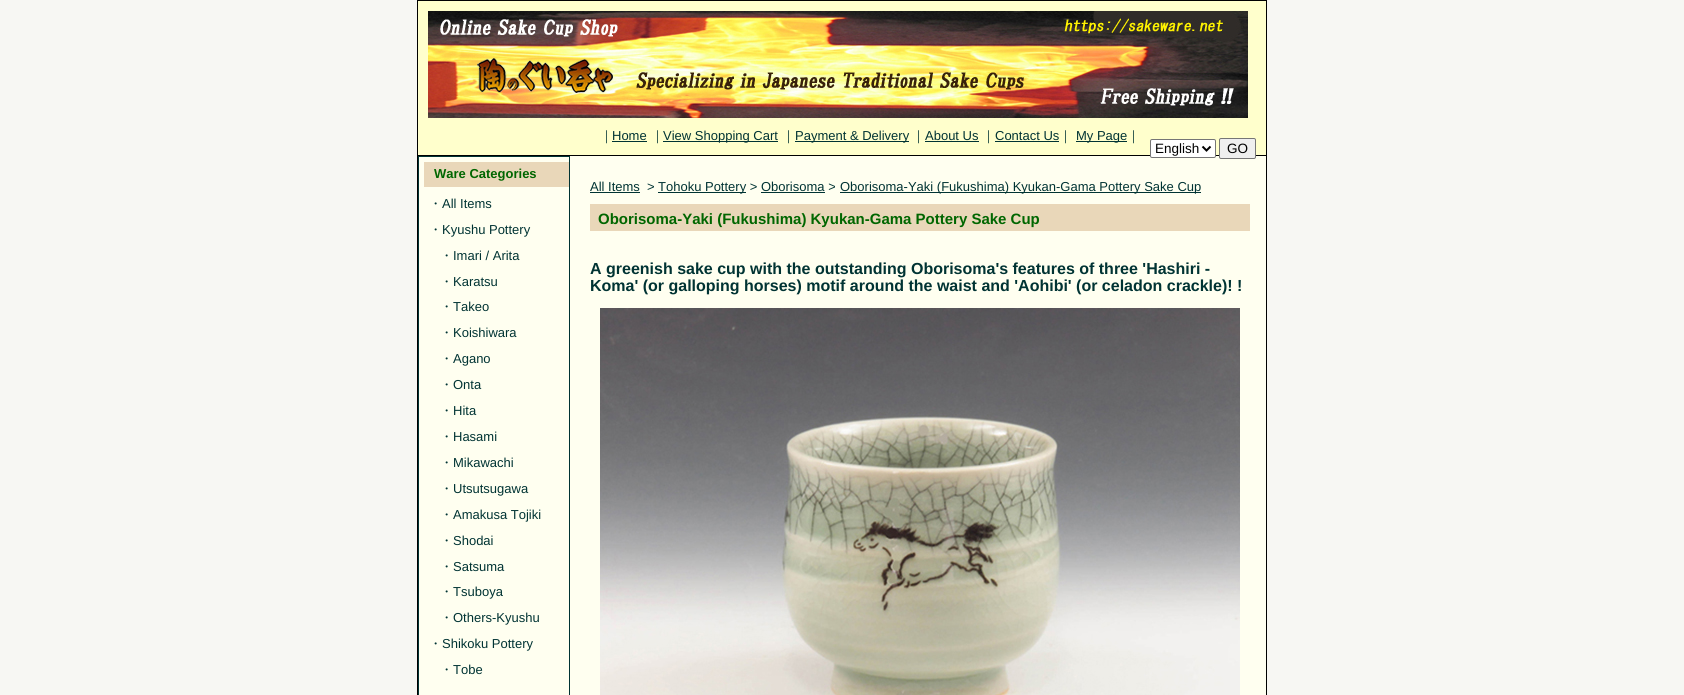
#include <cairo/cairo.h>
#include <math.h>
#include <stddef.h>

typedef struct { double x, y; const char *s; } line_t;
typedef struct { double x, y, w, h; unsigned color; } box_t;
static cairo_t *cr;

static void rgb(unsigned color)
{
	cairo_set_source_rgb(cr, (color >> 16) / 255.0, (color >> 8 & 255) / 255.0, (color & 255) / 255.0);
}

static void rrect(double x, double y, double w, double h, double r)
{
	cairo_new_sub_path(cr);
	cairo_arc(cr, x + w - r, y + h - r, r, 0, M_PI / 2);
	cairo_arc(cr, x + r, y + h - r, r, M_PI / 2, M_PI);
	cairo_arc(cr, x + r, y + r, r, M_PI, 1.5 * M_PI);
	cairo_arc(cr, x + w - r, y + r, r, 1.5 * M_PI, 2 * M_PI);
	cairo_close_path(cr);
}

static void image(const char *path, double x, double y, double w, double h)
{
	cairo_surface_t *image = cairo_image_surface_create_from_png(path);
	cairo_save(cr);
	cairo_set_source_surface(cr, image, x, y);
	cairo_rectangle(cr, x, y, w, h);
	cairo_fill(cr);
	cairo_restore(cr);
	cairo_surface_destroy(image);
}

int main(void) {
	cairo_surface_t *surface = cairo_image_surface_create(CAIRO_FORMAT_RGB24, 1684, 695);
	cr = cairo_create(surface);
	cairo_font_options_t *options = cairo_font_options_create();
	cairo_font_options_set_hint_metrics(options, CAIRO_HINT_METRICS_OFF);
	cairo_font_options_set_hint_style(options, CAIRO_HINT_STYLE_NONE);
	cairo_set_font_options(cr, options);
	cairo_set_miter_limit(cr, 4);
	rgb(0xf7f7f3);
	cairo_paint(cr);
	cairo_rectangle(cr, 417.5, 0.5, 849, 155);
	rgb(0x000000);
	cairo_set_line_width(cr, 1);
	cairo_stroke(cr);
	rgb(0xffffcc);
	cairo_rectangle(cr, 418, 1, 848, 154);
	cairo_fill(cr);
	image("img/1.png", 428, 11, 820, 107);
	{
		static const box_t items[] = {
			{612, 141, 35, 1, 0x003333},
			{663, 141, 115, 1, 0x003333},
			{795, 141, 114, 1, 0x003333},
			{925, 141, 54, 1, 0x003333},
			{995, 141, 64, 1, 0x003333},
			{1076, 141, 51, 1, 0x003333},
			{419, 156, 847, 539, 0xfffff0},
		};
		for (size_t i = 0; i < sizeof items / sizeof *items; i++) {
			rgb(items[i].color);
			cairo_rectangle(cr, items[i].x, items[i].y, items[i].w, items[i].h);
			cairo_fill(cr);
		}
	}
	rgb(0xffffff);
	rrect(1150.5, 139.5, 65, 18, 1.5);
	cairo_fill_preserve(cr);
	rgb(0x767676);
	cairo_stroke(cr);
	cairo_new_path(cr);
	cairo_move_to(cr, 1202.5, 146.5);
	cairo_line_to(cr, 1206.5, 150.5);
	cairo_line_to(cr, 1210.5, 146.5);
	rgb(0x000000);
	cairo_set_line_width(cr, 2);
	cairo_stroke(cr);
	rgb(0xefefef);
	rrect(1219.5, 138.5, 36, 20, 1.5);
	cairo_fill_preserve(cr);
	rgb(0x767676);
	cairo_set_line_width(cr, 1);
	cairo_stroke(cr);
	rgb(0x000000);
	cairo_rectangle(cr, 1266, 156, 1, 539);
	cairo_fill(cr);
	cairo_rectangle(cr, 417, 156, 1, 539);
	cairo_fill(cr);
	cairo_rectangle(cr, 418.5, 156.5, 151, 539);
	rgb(0x003333);
	cairo_stroke(cr);
	{
		static const box_t items[] = {
			{424, 162, 145, 25, 0xe9d7b9},
			{590, 192, 50, 1, 0x003333},
			{658, 192, 88, 1, 0x003333},
			{840, 192, 361, 1, 0x003333},
			{761, 192, 64, 1, 0x003333},
			{590, 204, 660, 27, 0xe9d7b9},
		};
		for (size_t i = 0; i < sizeof items / sizeof *items; i++) {
			rgb(items[i].color);
			cairo_rectangle(cr, items[i].x, items[i].y, items[i].w, items[i].h);
			cairo_fill(cr);
		}
	}
	image("img/2.png", 600, 308, 640, 387);
	cairo_select_font_face(cr, "WenQuanYi Zen Hei Medium", CAIRO_FONT_SLANT_NORMAL, CAIRO_FONT_WEIGHT_NORMAL);
	cairo_set_font_size(cr, 13);
	rgb(0x003333);
	cairo_move_to(cr, 600, 140);
	cairo_show_text(cr, "｜");
	cairo_select_font_face(cr, "Liberation Sans", CAIRO_FONT_SLANT_NORMAL, CAIRO_FONT_WEIGHT_NORMAL);
	cairo_move_to(cr, 612, 140);
	cairo_show_text(cr, "Home");
	cairo_select_font_face(cr, "WenQuanYi Zen Hei Medium", CAIRO_FONT_SLANT_NORMAL, CAIRO_FONT_WEIGHT_NORMAL);
	cairo_move_to(cr, 651, 140);
	cairo_show_text(cr, "｜");
	cairo_select_font_face(cr, "Liberation Sans", CAIRO_FONT_SLANT_NORMAL, CAIRO_FONT_WEIGHT_NORMAL);
	cairo_move_to(cr, 663, 140);
	cairo_show_text(cr, "View Shopping Cart");
	cairo_select_font_face(cr, "WenQuanYi Zen Hei Medium", CAIRO_FONT_SLANT_NORMAL, CAIRO_FONT_WEIGHT_NORMAL);
	cairo_move_to(cr, 782, 140);
	cairo_show_text(cr, "｜");
	cairo_select_font_face(cr, "Liberation Sans", CAIRO_FONT_SLANT_NORMAL, CAIRO_FONT_WEIGHT_NORMAL);
	cairo_move_to(cr, 795, 140);
	cairo_show_text(cr, "Payment & Delivery");
	cairo_select_font_face(cr, "WenQuanYi Zen Hei Medium", CAIRO_FONT_SLANT_NORMAL, CAIRO_FONT_WEIGHT_NORMAL);
	cairo_move_to(cr, 912, 140);
	cairo_show_text(cr, "｜");
	cairo_select_font_face(cr, "Liberation Sans", CAIRO_FONT_SLANT_NORMAL, CAIRO_FONT_WEIGHT_NORMAL);
	cairo_move_to(cr, 925, 140);
	cairo_show_text(cr, "About Us");
	cairo_select_font_face(cr, "WenQuanYi Zen Hei Medium", CAIRO_FONT_SLANT_NORMAL, CAIRO_FONT_WEIGHT_NORMAL);
	cairo_move_to(cr, 982, 140);
	cairo_show_text(cr, "｜");
	cairo_select_font_face(cr, "Liberation Sans", CAIRO_FONT_SLANT_NORMAL, CAIRO_FONT_WEIGHT_NORMAL);
	cairo_move_to(cr, 995, 140);
	cairo_show_text(cr, "Contact Us");
	cairo_select_font_face(cr, "WenQuanYi Zen Hei Medium", CAIRO_FONT_SLANT_NORMAL, CAIRO_FONT_WEIGHT_NORMAL);
	cairo_move_to(cr, 1059, 140);
	cairo_show_text(cr, "｜");
	cairo_select_font_face(cr, "Liberation Sans", CAIRO_FONT_SLANT_NORMAL, CAIRO_FONT_WEIGHT_NORMAL);
	cairo_move_to(cr, 1076, 140);
	cairo_show_text(cr, "My Page");
	cairo_select_font_face(cr, "WenQuanYi Zen Hei Medium", CAIRO_FONT_SLANT_NORMAL, CAIRO_FONT_WEIGHT_NORMAL);
	cairo_move_to(cr, 1127, 140);
	cairo_show_text(cr, "｜");
	cairo_select_font_face(cr, "Liberation Sans", CAIRO_FONT_SLANT_NORMAL, CAIRO_FONT_WEIGHT_NORMAL);
	cairo_set_font_size(cr, 13.5);
	rgb(0x000000);
	cairo_move_to(cr, 1155, 153);
	cairo_show_text(cr, "English");
	cairo_move_to(cr, 1227, 153);
	cairo_show_text(cr, "GO");
	cairo_select_font_face(cr, "Liberation Sans", CAIRO_FONT_SLANT_NORMAL, CAIRO_FONT_WEIGHT_BOLD);
	cairo_set_font_size(cr, 13);
	rgb(0x006600);
	cairo_move_to(cr, 434, 178);
	cairo_show_text(cr, "Ware Categories");
	cairo_select_font_face(cr, "WenQuanYi Zen Hei Medium", CAIRO_FONT_SLANT_NORMAL, CAIRO_FONT_WEIGHT_NORMAL);
	rgb(0x003333);
	cairo_move_to(cr, 429, 208);
	cairo_show_text(cr, "・");
	cairo_select_font_face(cr, "Liberation Sans", CAIRO_FONT_SLANT_NORMAL, CAIRO_FONT_WEIGHT_NORMAL);
	cairo_move_to(cr, 442, 208);
	cairo_show_text(cr, "All Items");
	cairo_select_font_face(cr, "WenQuanYi Zen Hei Medium", CAIRO_FONT_SLANT_NORMAL, CAIRO_FONT_WEIGHT_NORMAL);
	cairo_move_to(cr, 429, 234);
	cairo_show_text(cr, "・");
	cairo_select_font_face(cr, "Liberation Sans", CAIRO_FONT_SLANT_NORMAL, CAIRO_FONT_WEIGHT_NORMAL);
	cairo_move_to(cr, 442, 234);
	cairo_show_text(cr, "Kyushu Pottery");
	cairo_select_font_face(cr, "WenQuanYi Zen Hei Medium", CAIRO_FONT_SLANT_NORMAL, CAIRO_FONT_WEIGHT_NORMAL);
	cairo_move_to(cr, 440, 260);
	cairo_show_text(cr, "・");
	cairo_select_font_face(cr, "Liberation Sans", CAIRO_FONT_SLANT_NORMAL, CAIRO_FONT_WEIGHT_NORMAL);
	cairo_move_to(cr, 453, 260);
	cairo_show_text(cr, "Imari / Arita");
	cairo_select_font_face(cr, "WenQuanYi Zen Hei Medium", CAIRO_FONT_SLANT_NORMAL, CAIRO_FONT_WEIGHT_NORMAL);
	cairo_move_to(cr, 440, 286);
	cairo_show_text(cr, "・");
	cairo_select_font_face(cr, "Liberation Sans", CAIRO_FONT_SLANT_NORMAL, CAIRO_FONT_WEIGHT_NORMAL);
	cairo_move_to(cr, 453, 286);
	cairo_show_text(cr, "Karatsu");
	cairo_select_font_face(cr, "WenQuanYi Zen Hei Medium", CAIRO_FONT_SLANT_NORMAL, CAIRO_FONT_WEIGHT_NORMAL);
	cairo_move_to(cr, 440, 311);
	cairo_show_text(cr, "・");
	cairo_select_font_face(cr, "Liberation Sans", CAIRO_FONT_SLANT_NORMAL, CAIRO_FONT_WEIGHT_NORMAL);
	cairo_move_to(cr, 453, 311);
	cairo_show_text(cr, "Takeo");
	cairo_select_font_face(cr, "WenQuanYi Zen Hei Medium", CAIRO_FONT_SLANT_NORMAL, CAIRO_FONT_WEIGHT_NORMAL);
	cairo_move_to(cr, 440, 337);
	cairo_show_text(cr, "・");
	cairo_select_font_face(cr, "Liberation Sans", CAIRO_FONT_SLANT_NORMAL, CAIRO_FONT_WEIGHT_NORMAL);
	cairo_move_to(cr, 453, 337);
	cairo_show_text(cr, "Koishiwara");
	cairo_select_font_face(cr, "WenQuanYi Zen Hei Medium", CAIRO_FONT_SLANT_NORMAL, CAIRO_FONT_WEIGHT_NORMAL);
	cairo_move_to(cr, 440, 363);
	cairo_show_text(cr, "・");
	cairo_select_font_face(cr, "Liberation Sans", CAIRO_FONT_SLANT_NORMAL, CAIRO_FONT_WEIGHT_NORMAL);
	cairo_move_to(cr, 453, 363);
	cairo_show_text(cr, "Agano");
	cairo_select_font_face(cr, "WenQuanYi Zen Hei Medium", CAIRO_FONT_SLANT_NORMAL, CAIRO_FONT_WEIGHT_NORMAL);
	cairo_move_to(cr, 440, 389);
	cairo_show_text(cr, "・");
	cairo_select_font_face(cr, "Liberation Sans", CAIRO_FONT_SLANT_NORMAL, CAIRO_FONT_WEIGHT_NORMAL);
	cairo_move_to(cr, 453, 389);
	cairo_show_text(cr, "Onta");
	cairo_select_font_face(cr, "WenQuanYi Zen Hei Medium", CAIRO_FONT_SLANT_NORMAL, CAIRO_FONT_WEIGHT_NORMAL);
	cairo_move_to(cr, 440, 415);
	cairo_show_text(cr, "・");
	cairo_select_font_face(cr, "Liberation Sans", CAIRO_FONT_SLANT_NORMAL, CAIRO_FONT_WEIGHT_NORMAL);
	cairo_move_to(cr, 453, 415);
	cairo_show_text(cr, "Hita");
	cairo_select_font_face(cr, "WenQuanYi Zen Hei Medium", CAIRO_FONT_SLANT_NORMAL, CAIRO_FONT_WEIGHT_NORMAL);
	cairo_move_to(cr, 440, 441);
	cairo_show_text(cr, "・");
	cairo_select_font_face(cr, "Liberation Sans", CAIRO_FONT_SLANT_NORMAL, CAIRO_FONT_WEIGHT_NORMAL);
	cairo_move_to(cr, 453, 441);
	cairo_show_text(cr, "Hasami");
	cairo_select_font_face(cr, "WenQuanYi Zen Hei Medium", CAIRO_FONT_SLANT_NORMAL, CAIRO_FONT_WEIGHT_NORMAL);
	cairo_move_to(cr, 440, 467);
	cairo_show_text(cr, "・");
	cairo_select_font_face(cr, "Liberation Sans", CAIRO_FONT_SLANT_NORMAL, CAIRO_FONT_WEIGHT_NORMAL);
	cairo_move_to(cr, 453, 467);
	cairo_show_text(cr, "Mikawachi");
	cairo_select_font_face(cr, "WenQuanYi Zen Hei Medium", CAIRO_FONT_SLANT_NORMAL, CAIRO_FONT_WEIGHT_NORMAL);
	cairo_move_to(cr, 440, 493);
	cairo_show_text(cr, "・");
	cairo_select_font_face(cr, "Liberation Sans", CAIRO_FONT_SLANT_NORMAL, CAIRO_FONT_WEIGHT_NORMAL);
	cairo_move_to(cr, 453, 493);
	cairo_show_text(cr, "Utsutsugawa");
	cairo_select_font_face(cr, "WenQuanYi Zen Hei Medium", CAIRO_FONT_SLANT_NORMAL, CAIRO_FONT_WEIGHT_NORMAL);
	cairo_move_to(cr, 440, 519);
	cairo_show_text(cr, "・");
	cairo_select_font_face(cr, "Liberation Sans", CAIRO_FONT_SLANT_NORMAL, CAIRO_FONT_WEIGHT_NORMAL);
	cairo_move_to(cr, 453, 519);
	cairo_show_text(cr, "Amakusa Tojiki");
	cairo_select_font_face(cr, "WenQuanYi Zen Hei Medium", CAIRO_FONT_SLANT_NORMAL, CAIRO_FONT_WEIGHT_NORMAL);
	cairo_move_to(cr, 440, 545);
	cairo_show_text(cr, "・");
	cairo_select_font_face(cr, "Liberation Sans", CAIRO_FONT_SLANT_NORMAL, CAIRO_FONT_WEIGHT_NORMAL);
	cairo_move_to(cr, 453, 545);
	cairo_show_text(cr, "Shodai");
	cairo_select_font_face(cr, "WenQuanYi Zen Hei Medium", CAIRO_FONT_SLANT_NORMAL, CAIRO_FONT_WEIGHT_NORMAL);
	cairo_move_to(cr, 440, 571);
	cairo_show_text(cr, "・");
	cairo_select_font_face(cr, "Liberation Sans", CAIRO_FONT_SLANT_NORMAL, CAIRO_FONT_WEIGHT_NORMAL);
	cairo_move_to(cr, 453, 571);
	cairo_show_text(cr, "Satsuma");
	cairo_select_font_face(cr, "WenQuanYi Zen Hei Medium", CAIRO_FONT_SLANT_NORMAL, CAIRO_FONT_WEIGHT_NORMAL);
	cairo_move_to(cr, 440, 596);
	cairo_show_text(cr, "・");
	cairo_select_font_face(cr, "Liberation Sans", CAIRO_FONT_SLANT_NORMAL, CAIRO_FONT_WEIGHT_NORMAL);
	cairo_move_to(cr, 453, 596);
	cairo_show_text(cr, "Tsuboya");
	cairo_select_font_face(cr, "WenQuanYi Zen Hei Medium", CAIRO_FONT_SLANT_NORMAL, CAIRO_FONT_WEIGHT_NORMAL);
	cairo_move_to(cr, 440, 622);
	cairo_show_text(cr, "・");
	cairo_select_font_face(cr, "Liberation Sans", CAIRO_FONT_SLANT_NORMAL, CAIRO_FONT_WEIGHT_NORMAL);
	cairo_move_to(cr, 453, 622);
	cairo_show_text(cr, "Others-Kyushu");
	cairo_select_font_face(cr, "WenQuanYi Zen Hei Medium", CAIRO_FONT_SLANT_NORMAL, CAIRO_FONT_WEIGHT_NORMAL);
	cairo_move_to(cr, 429, 648);
	cairo_show_text(cr, "・");
	cairo_select_font_face(cr, "Liberation Sans", CAIRO_FONT_SLANT_NORMAL, CAIRO_FONT_WEIGHT_NORMAL);
	cairo_move_to(cr, 442, 648);
	cairo_show_text(cr, "Shikoku Pottery");
	cairo_select_font_face(cr, "WenQuanYi Zen Hei Medium", CAIRO_FONT_SLANT_NORMAL, CAIRO_FONT_WEIGHT_NORMAL);
	cairo_move_to(cr, 440, 674);
	cairo_show_text(cr, "・");
	cairo_select_font_face(cr, "Liberation Sans", CAIRO_FONT_SLANT_NORMAL, CAIRO_FONT_WEIGHT_NORMAL);
	{
		static const line_t items[] = {
			{453, 674, "Tobe"},
			{590, 191, "All Items"},
			{647, 191, ">"},
			{658, 191, "Tohoku Pottery > Oborisoma >"},
			{840, 191, "Oborisoma-Yaki (Fukushima) Kyukan-Gama Pottery Sake Cup"},
		};
		for (size_t i = 0; i < sizeof items / sizeof *items; i++) {
			cairo_move_to(cr, items[i].x, items[i].y);
			cairo_show_text(cr, items[i].s);
		}
	}
	cairo_select_font_face(cr, "Liberation Sans", CAIRO_FONT_SLANT_NORMAL, CAIRO_FONT_WEIGHT_BOLD);
	cairo_set_font_size(cr, 15);
	rgb(0x006600);
	cairo_move_to(cr, 598, 224);
	cairo_show_text(cr, "Oborisoma-Yaki (Fukushima) Kyukan-Gama Pottery Sake Cup");
	cairo_set_font_size(cr, 16);
	rgb(0x003333);
	cairo_move_to(cr, 590, 274);
	cairo_show_text(cr, "A greenish sake cup with the outstanding Oborisoma's features of three 'Hashiri -");
	cairo_move_to(cr, 590, 291);
	cairo_show_text(cr, "Koma' (or galloping horses) motif around the waist and 'Aohibi' (or celadon crackle)! !");
	cairo_surface_write_to_png(surface, "page.png");
	cairo_font_options_destroy(options);
	cairo_destroy(cr);
	cairo_surface_destroy(surface);
	return 0;
}
